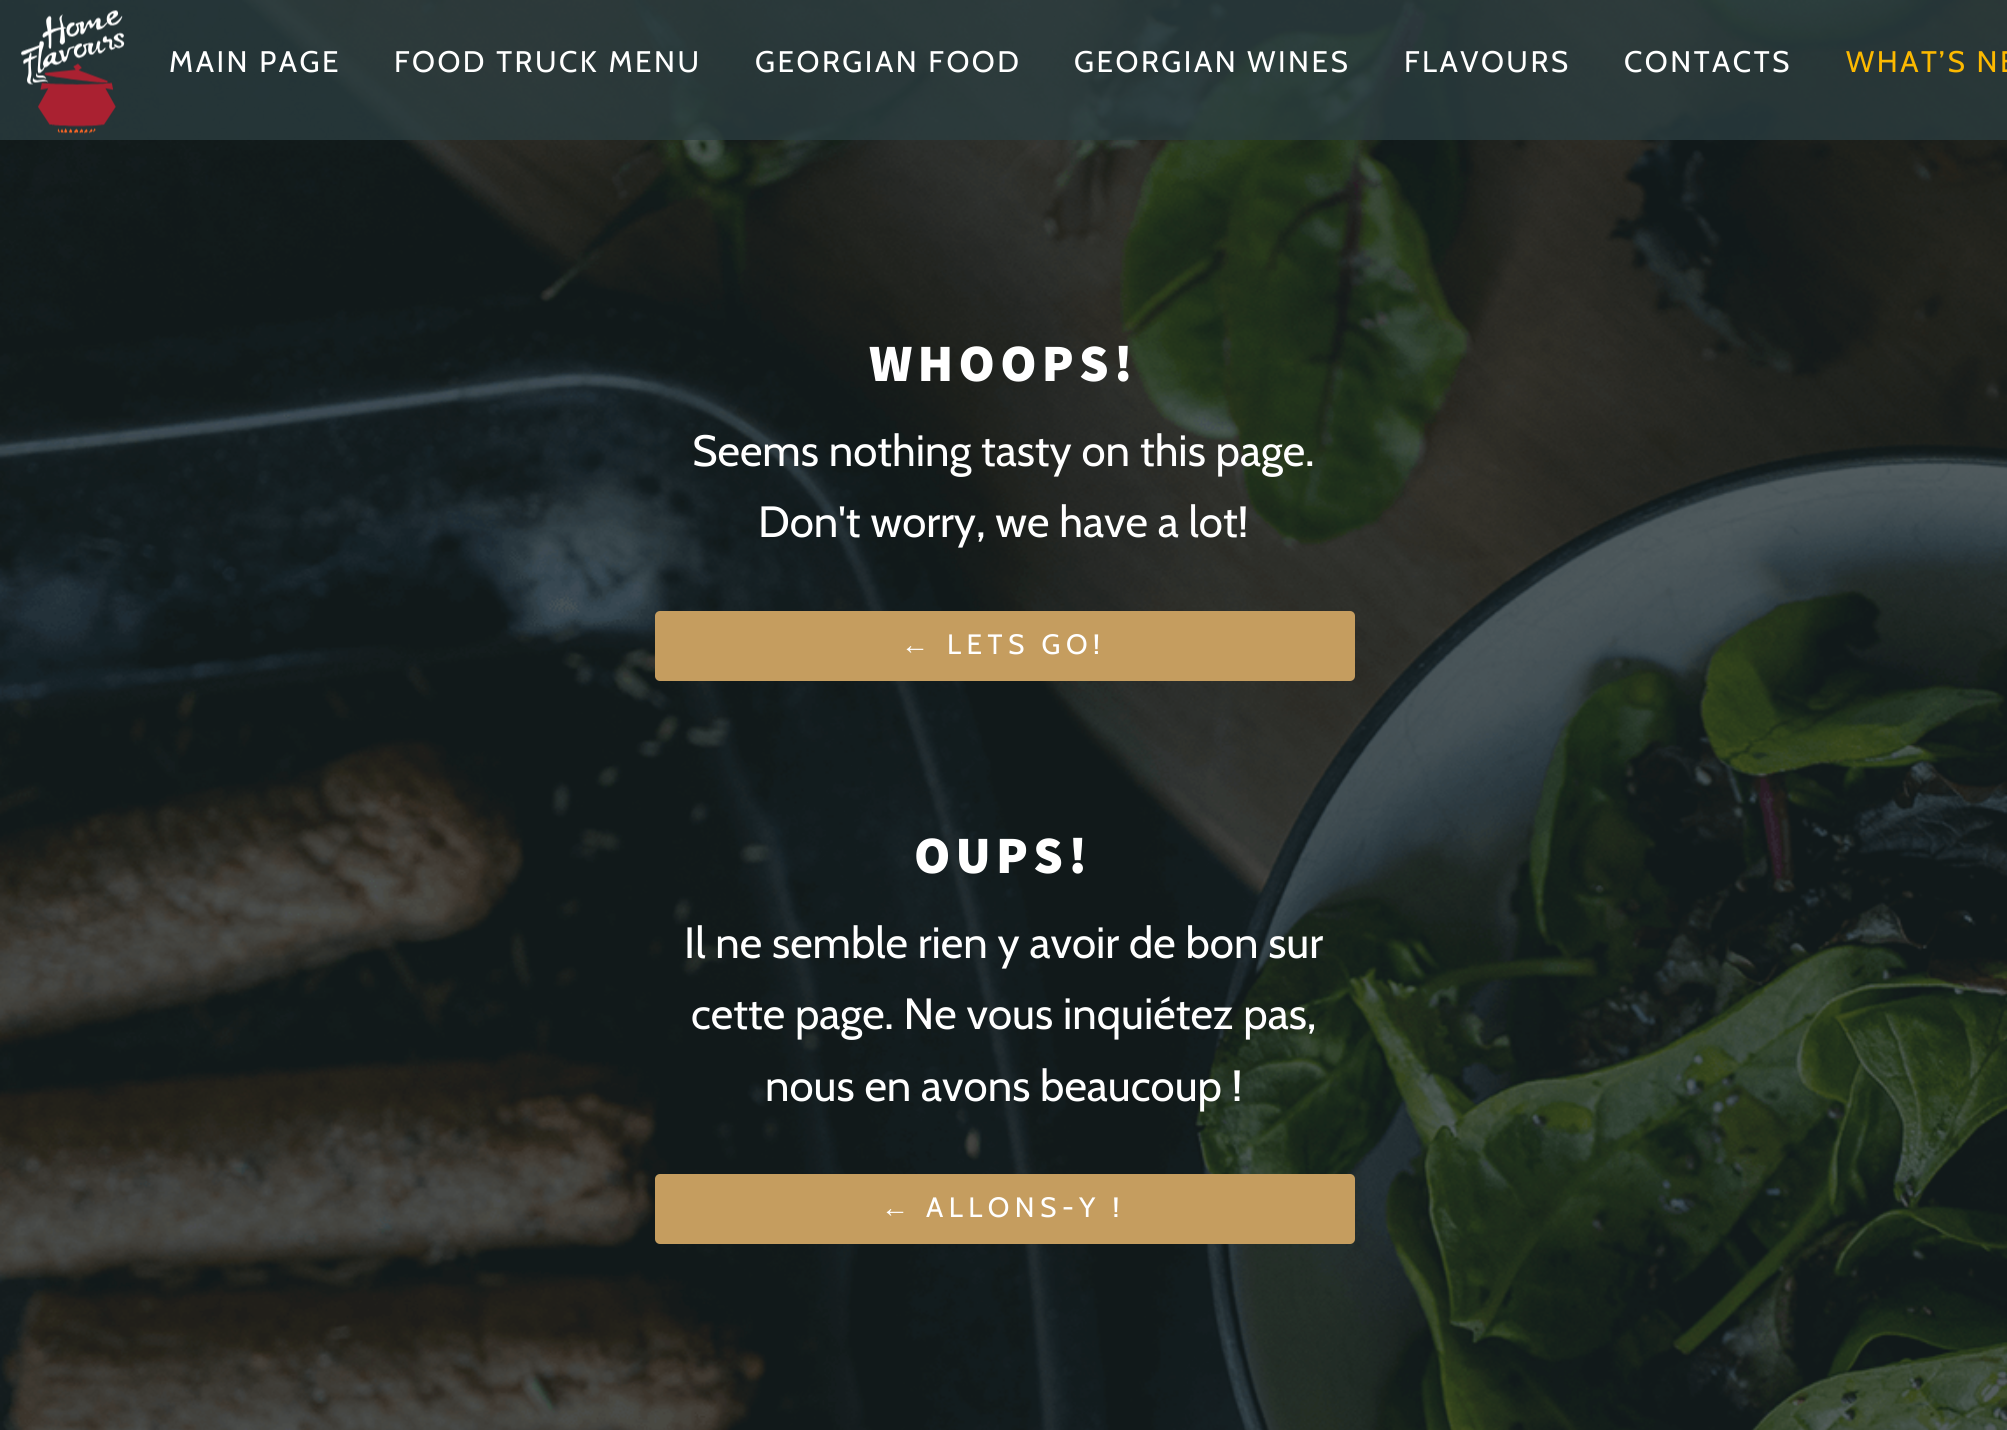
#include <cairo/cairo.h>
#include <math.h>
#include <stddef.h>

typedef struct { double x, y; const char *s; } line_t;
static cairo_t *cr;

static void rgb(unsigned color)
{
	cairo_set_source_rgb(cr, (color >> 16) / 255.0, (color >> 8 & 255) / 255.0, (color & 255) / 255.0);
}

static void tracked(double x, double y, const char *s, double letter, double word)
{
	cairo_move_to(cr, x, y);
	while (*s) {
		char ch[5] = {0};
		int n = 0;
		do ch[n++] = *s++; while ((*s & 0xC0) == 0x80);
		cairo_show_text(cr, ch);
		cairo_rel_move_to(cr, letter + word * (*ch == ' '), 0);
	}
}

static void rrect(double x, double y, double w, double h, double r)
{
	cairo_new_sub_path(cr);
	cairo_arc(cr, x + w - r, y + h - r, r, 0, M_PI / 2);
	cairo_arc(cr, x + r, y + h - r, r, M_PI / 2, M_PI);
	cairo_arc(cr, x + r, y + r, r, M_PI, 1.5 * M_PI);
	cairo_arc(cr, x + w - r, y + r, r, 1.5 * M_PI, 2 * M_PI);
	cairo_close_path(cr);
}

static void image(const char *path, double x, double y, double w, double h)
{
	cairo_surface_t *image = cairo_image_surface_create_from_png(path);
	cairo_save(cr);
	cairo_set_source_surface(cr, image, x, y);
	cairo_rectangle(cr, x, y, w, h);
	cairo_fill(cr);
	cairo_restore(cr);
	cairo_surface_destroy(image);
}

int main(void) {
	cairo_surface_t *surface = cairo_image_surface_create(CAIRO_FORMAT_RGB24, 2007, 1430);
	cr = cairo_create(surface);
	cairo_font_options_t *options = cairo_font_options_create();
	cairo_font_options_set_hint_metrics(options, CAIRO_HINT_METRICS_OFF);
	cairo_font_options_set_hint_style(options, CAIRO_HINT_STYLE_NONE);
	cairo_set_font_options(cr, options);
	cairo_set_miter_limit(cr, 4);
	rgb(0x2b3e40);
	cairo_paint(cr);
	image("img/1.png", 0, 0, 2007, 1430);
	cairo_set_source_rgba(cr, 0.169, 0.243, 0.251, 0.75);
	cairo_rectangle(cr, 0, 0, 2007, 140);
	cairo_fill(cr);
	image("img/2.png", 21, 10, 104, 124);
	rgb(0xc59d5f);
	rrect(655, 611, 700, 70, 5);
	cairo_fill(cr);
	rrect(655, 1174, 700, 70, 5);
	cairo_fill(cr);
	cairo_select_font_face(cr, "Cabin", CAIRO_FONT_SLANT_NORMAL, CAIRO_FONT_WEIGHT_NORMAL);
	cairo_set_font_size(cr, 29.75);
	rgb(0xffffff);
	{
		static const line_t items[] = {
			{169, 72, "MAIN PAGE"},
			{394, 72, "FOOD TRUCK MENU"},
			{755, 72, "GEORGIAN FOOD"},
			{1074, 72, "GEORGIAN WINES"},
			{1404, 72, "FLAVOURS"},
			{1624, 72, "CONTACTS"},
		};
		for (size_t i = 0; i < sizeof items / sizeof *items; i++) {
			tracked(items[i].x, items[i].y, items[i].s, 2.5, 0);
		}
	}
	rgb(0xfcb900);
	tracked(1846, 72, "WHAT’S NE", 2.5, 0);
	cairo_select_font_face(cr, "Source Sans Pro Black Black", CAIRO_FONT_SLANT_NORMAL, CAIRO_FONT_WEIGHT_NORMAL);
	cairo_set_font_size(cr, 52.5);
	rgb(0xffffff);
	tracked(869, 381, "WHOOPS!", 5.25, 0);
	cairo_select_font_face(cr, "Cabin", CAIRO_FONT_SLANT_NORMAL, CAIRO_FONT_WEIGHT_NORMAL);
	cairo_set_font_size(cr, 43.75);
	cairo_move_to(cr, 692, 466);
	cairo_show_text(cr, "Seems nothing tasty on this page.");
	cairo_move_to(cr, 758, 537);
	cairo_show_text(cr, "Don't worry, we have a lot!");
	cairo_select_font_face(cr, "Liberation Sans", CAIRO_FONT_SLANT_NORMAL, CAIRO_FONT_WEIGHT_NORMAL);
	cairo_set_font_size(cr, 28);
	tracked(901, 654, "←", 5.5, 0);
	cairo_select_font_face(cr, "Cabin", CAIRO_FONT_SLANT_NORMAL, CAIRO_FONT_WEIGHT_NORMAL);
	tracked(947, 654, "LETS GO!", 5.5, 0);
	cairo_select_font_face(cr, "Source Sans Pro Black Black", CAIRO_FONT_SLANT_NORMAL, CAIRO_FONT_WEIGHT_NORMAL);
	cairo_set_font_size(cr, 52.5);
	tracked(914, 873, "OUPS!", 5.25, 0);
	cairo_select_font_face(cr, "Cabin", CAIRO_FONT_SLANT_NORMAL, CAIRO_FONT_WEIGHT_NORMAL);
	cairo_set_font_size(cr, 43.75);
	{
		static const line_t items[] = {
			{684, 958, "Il ne semble rien y avoir de bon sur"},
			{691, 1029, "cette page. Ne vous inquiétez pas,"},
			{765, 1101, "nous en avons beaucoup !"},
		};
		for (size_t i = 0; i < sizeof items / sizeof *items; i++) {
			cairo_move_to(cr, items[i].x, items[i].y);
			cairo_show_text(cr, items[i].s);
		}
	}
	cairo_select_font_face(cr, "Liberation Sans", CAIRO_FONT_SLANT_NORMAL, CAIRO_FONT_WEIGHT_NORMAL);
	cairo_set_font_size(cr, 28);
	tracked(881, 1217, "←", 5.5, 0);
	cairo_select_font_face(cr, "Cabin", CAIRO_FONT_SLANT_NORMAL, CAIRO_FONT_WEIGHT_NORMAL);
	tracked(926, 1217, "ALLONS-Y !", 5.5, 0);
	cairo_surface_write_to_png(surface, "page.png");
	cairo_font_options_destroy(options);
	cairo_destroy(cr);
	cairo_surface_destroy(surface);
	return 0;
}
